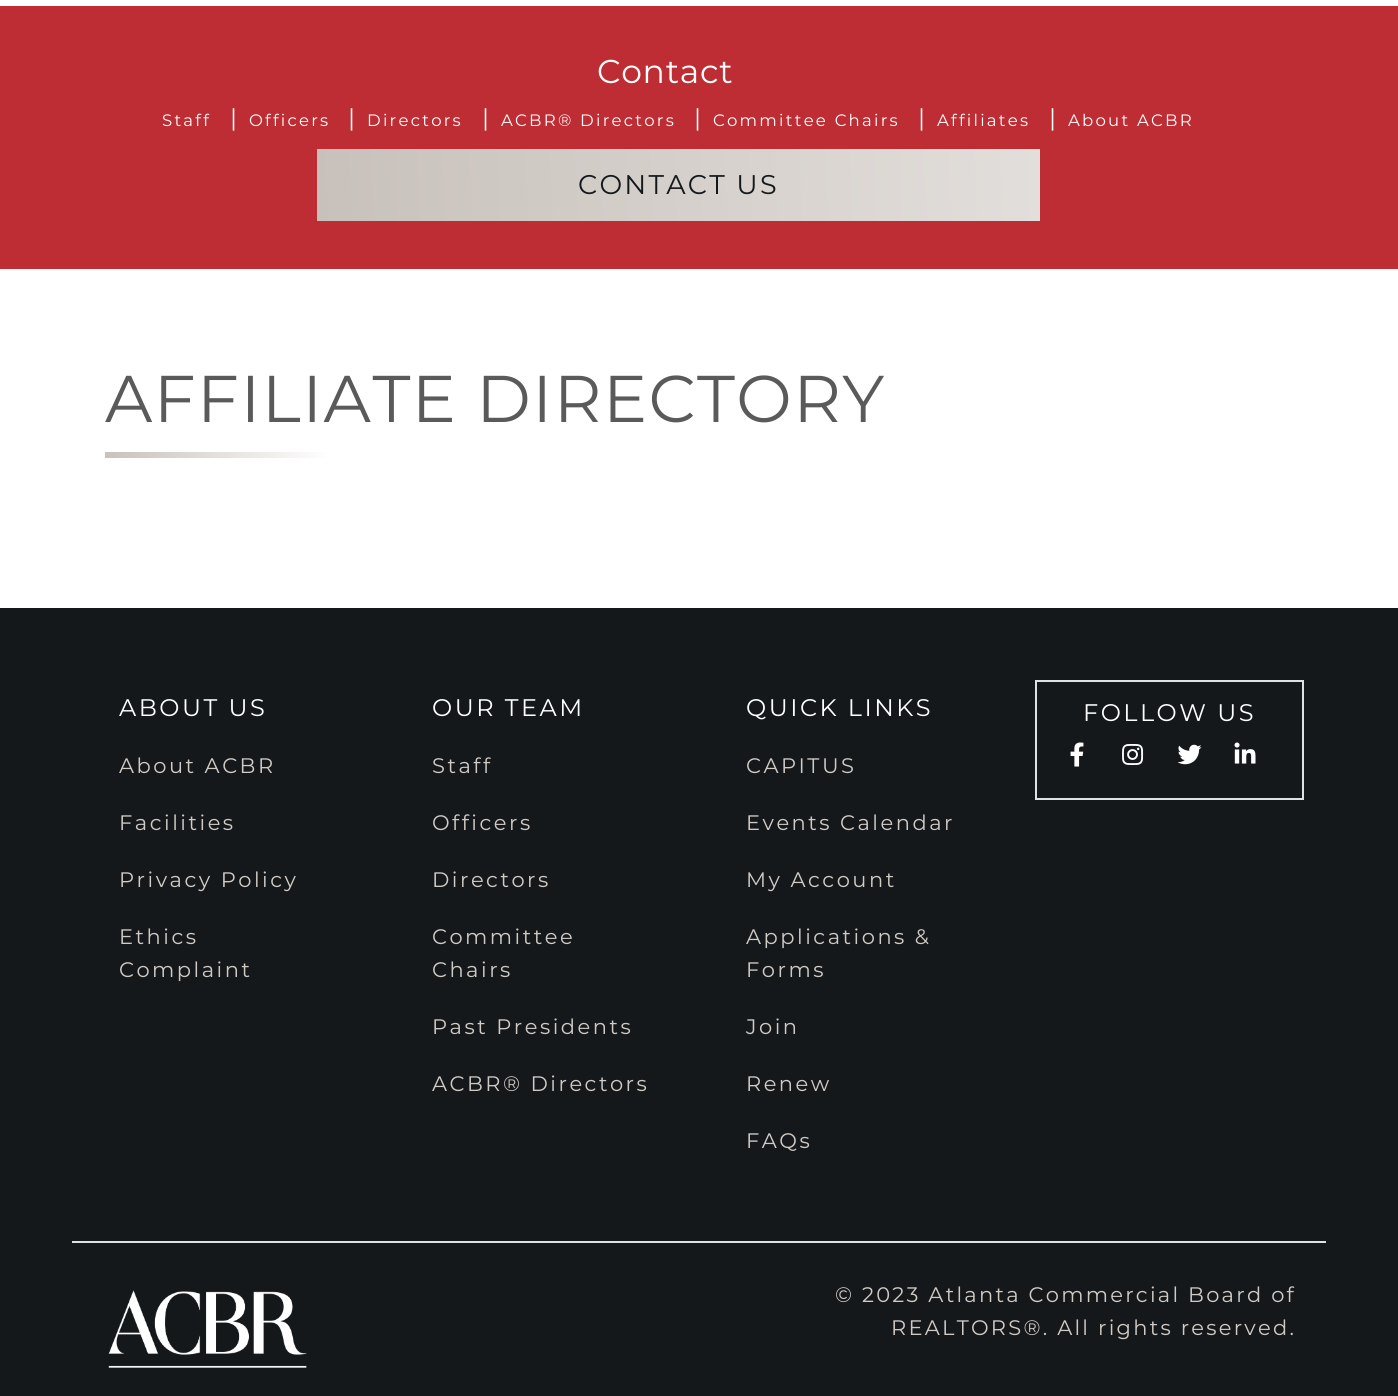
#include <cairo/cairo.h>
#include <math.h>
#include <stddef.h>

typedef struct { double x, y; const char *s; } line_t;
static cairo_t *cr;

static void rgb(unsigned color)
{
	cairo_set_source_rgb(cr, (color >> 16) / 255.0, (color >> 8 & 255) / 255.0, (color & 255) / 255.0);
}

static void tracked(double x, double y, const char *s, double letter, double word)
{
	cairo_move_to(cr, x, y);
	while (*s) {
		char ch[5] = {0};
		int n = 0;
		do ch[n++] = *s++; while ((*s & 0xC0) == 0x80);
		cairo_show_text(cr, ch);
		cairo_rel_move_to(cr, letter + word * (*ch == ' '), 0);
	}
}

static void image(const char *path, double x, double y, double w, double h)
{
	cairo_surface_t *image = cairo_image_surface_create_from_png(path);
	cairo_save(cr);
	cairo_set_source_surface(cr, image, x, y);
	cairo_rectangle(cr, x, y, w, h);
	cairo_fill(cr);
	cairo_restore(cr);
	cairo_surface_destroy(image);
}

int main(void) {
	cairo_surface_t *surface = cairo_image_surface_create(CAIRO_FORMAT_RGB24, 1398, 1396);
	cr = cairo_create(surface);
	cairo_font_options_t *options = cairo_font_options_create();
	cairo_font_options_set_hint_metrics(options, CAIRO_HINT_METRICS_OFF);
	cairo_font_options_set_hint_style(options, CAIRO_HINT_STYLE_NONE);
	cairo_set_font_options(cr, options);
	cairo_set_miter_limit(cr, 4);
	cairo_pattern_t *gradient;
	rgb(0xffffff);
	cairo_paint(cr);
	rgb(0xbe2d34);
	cairo_rectangle(cr, 0, 6, 1398, 263);
	cairo_fill(cr);
	gradient = cairo_pattern_create_linear(1040, 168, 316, 201);
	cairo_pattern_add_color_stop_rgba(gradient, 0, 0.886, 0.871, 0.859, 1);
	cairo_pattern_add_color_stop_rgba(gradient, 1, 0.784, 0.757, 0.733, 1);
	cairo_set_source(cr, gradient);
	cairo_pattern_destroy(gradient);
	cairo_rectangle(cr, 317, 149, 723, 72);
	cairo_fill(cr);
	gradient = cairo_pattern_create_linear(330, 455, 105, 455);
	cairo_pattern_add_color_stop_rgba(gradient, 0, 1, 1, 1, 1);
	cairo_pattern_add_color_stop_rgba(gradient, 1, 0.784, 0.757, 0.733, 1);
	cairo_set_source(cr, gradient);
	cairo_pattern_destroy(gradient);
	cairo_rectangle(cr, 105, 452, 225, 6);
	cairo_fill(cr);
	rgb(0x15181b);
	cairo_rectangle(cr, 0, 608, 1398, 788);
	cairo_fill(cr);
	cairo_rectangle(cr, 1036, 681, 267, 118);
	rgb(0xdee2e6);
	cairo_stroke(cr);
	image("img/1.png", 1070, 742, 14, 25);
	image("img/2.png", 1122, 744, 22, 21);
	image("img/3.png", 1177, 744, 25, 21);
	image("img/4.png", 1234, 742, 22, 22);
	cairo_rectangle(cr, 72, 1241, 1254, 2);
	cairo_fill(cr);
	image("img/5.png", 108, 1290, 199, 78);
	cairo_select_font_face(cr, "Montserrat", CAIRO_FONT_SLANT_NORMAL, CAIRO_FONT_WEIGHT_NORMAL);
	cairo_set_font_size(cr, 33);
	rgb(0xffffff);
	tracked(597, 83, "Contact", 0.75, 0);
	cairo_set_font_size(cr, 16.5);
	tracked(162, 126, "Staff", 2.25, 0);
	cairo_set_font_size(cr, 24);
	cairo_move_to(cr, 230, 126);
	cairo_show_text(cr, "|");
	cairo_set_font_size(cr, 16.5);
	tracked(249, 126, "Officers", 2.25, 0);
	cairo_set_font_size(cr, 24);
	cairo_move_to(cr, 348, 126);
	cairo_show_text(cr, "|");
	cairo_set_font_size(cr, 16.5);
	tracked(367, 126, "Directors", 2.25, 0);
	cairo_set_font_size(cr, 24);
	cairo_move_to(cr, 482, 126);
	cairo_show_text(cr, "|");
	cairo_set_font_size(cr, 16.5);
	tracked(501, 126, "ACBR® Directors", 2.25, 0);
	cairo_set_font_size(cr, 24);
	cairo_move_to(cr, 694, 126);
	cairo_show_text(cr, "|");
	cairo_set_font_size(cr, 16.5);
	tracked(713, 126, "Committee Chairs", 2.25, 0);
	cairo_set_font_size(cr, 24);
	cairo_move_to(cr, 918, 126);
	cairo_show_text(cr, "|");
	cairo_set_font_size(cr, 16.5);
	tracked(937, 126, "Affiliates", 2.25, 0);
	cairo_set_font_size(cr, 24);
	cairo_move_to(cr, 1049, 126);
	cairo_show_text(cr, "|");
	cairo_set_font_size(cr, 16.5);
	tracked(1068, 126, "About ACBR", 2.25, 0);
	cairo_set_font_size(cr, 27);
	rgb(0x15181b);
	tracked(578, 194, "CONTACT US", 2.25, 0);
	cairo_set_font_size(cr, 66);
	rgb(0x5a5a5a);
	tracked(105, 422, "AFFILIATE DIRECTORY", 1.5, 0);
	cairo_set_font_size(cr, 24);
	rgb(0xffffff);
	tracked(119, 716, "ABOUT US", 2.5, 0);
	cairo_set_font_size(cr, 21);
	rgb(0xd0cbc5);
	{
		static const line_t items[] = {
			{119, 773, "About ACBR"},
			{119, 830, "Facilities"},
			{119, 887, "Privacy Policy"},
			{119, 944, "Ethics"},
			{119, 977, "Complaint"},
		};
		for (size_t i = 0; i < sizeof items / sizeof *items; i++) {
			tracked(items[i].x, items[i].y, items[i].s, 2.5, 0);
		}
	}
	cairo_set_font_size(cr, 24);
	rgb(0xffffff);
	tracked(432, 716, "OUR TEAM", 2.5, 0);
	cairo_set_font_size(cr, 21);
	rgb(0xd0cbc5);
	{
		static const line_t items[] = {
			{432, 773, "Staff"},
			{432, 830, "Officers"},
			{432, 887, "Directors"},
			{432, 944, "Committee"},
			{432, 977, "Chairs"},
			{432, 1034, "Past Presidents"},
			{432, 1091, "ACBR® Directors"},
		};
		for (size_t i = 0; i < sizeof items / sizeof *items; i++) {
			tracked(items[i].x, items[i].y, items[i].s, 2.5, 0);
		}
	}
	cairo_set_font_size(cr, 24);
	rgb(0xffffff);
	tracked(746, 716, "QUICK LINKS", 2.5, 0);
	cairo_set_font_size(cr, 21);
	rgb(0xd0cbc5);
	{
		static const line_t items[] = {
			{746, 773, "CAPITUS"},
			{746, 830, "Events Calendar"},
			{746, 887, "My Account"},
			{746, 944, "Applications &"},
			{746, 977, "Forms"},
			{746, 1034, "Join"},
			{746, 1091, "Renew"},
			{746, 1148, "FAQs"},
		};
		for (size_t i = 0; i < sizeof items / sizeof *items; i++) {
			tracked(items[i].x, items[i].y, items[i].s, 2.5, 0);
		}
	}
	cairo_set_font_size(cr, 24);
	rgb(0xffffff);
	tracked(1083, 721, "FOLLOW US", 2.5, 0);
	cairo_set_font_size(cr, 21);
	rgb(0xd0cbc5);
	tracked(835, 1302, "© 2023 Atlanta Commercial Board of", 2.25, 0);
	tracked(891, 1335, "REALTORS®. All rights reserved.", 2.25, 0);
	cairo_surface_write_to_png(surface, "page.png");
	cairo_font_options_destroy(options);
	cairo_destroy(cr);
	cairo_surface_destroy(surface);
	return 0;
}
